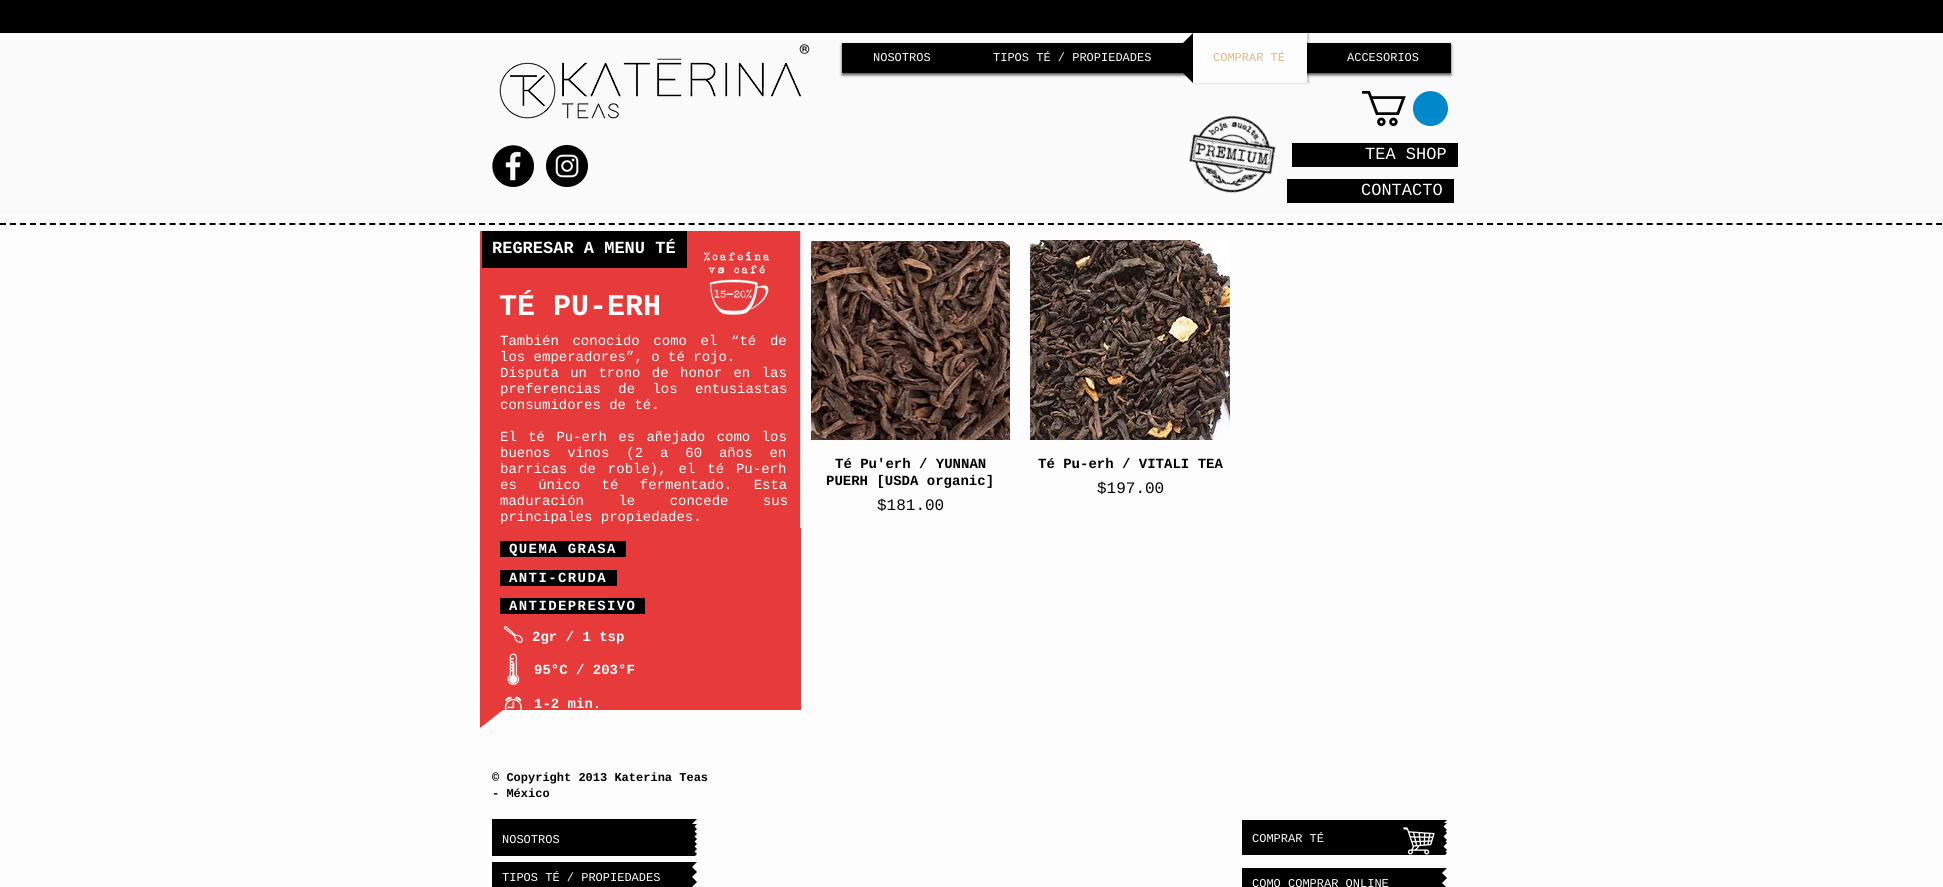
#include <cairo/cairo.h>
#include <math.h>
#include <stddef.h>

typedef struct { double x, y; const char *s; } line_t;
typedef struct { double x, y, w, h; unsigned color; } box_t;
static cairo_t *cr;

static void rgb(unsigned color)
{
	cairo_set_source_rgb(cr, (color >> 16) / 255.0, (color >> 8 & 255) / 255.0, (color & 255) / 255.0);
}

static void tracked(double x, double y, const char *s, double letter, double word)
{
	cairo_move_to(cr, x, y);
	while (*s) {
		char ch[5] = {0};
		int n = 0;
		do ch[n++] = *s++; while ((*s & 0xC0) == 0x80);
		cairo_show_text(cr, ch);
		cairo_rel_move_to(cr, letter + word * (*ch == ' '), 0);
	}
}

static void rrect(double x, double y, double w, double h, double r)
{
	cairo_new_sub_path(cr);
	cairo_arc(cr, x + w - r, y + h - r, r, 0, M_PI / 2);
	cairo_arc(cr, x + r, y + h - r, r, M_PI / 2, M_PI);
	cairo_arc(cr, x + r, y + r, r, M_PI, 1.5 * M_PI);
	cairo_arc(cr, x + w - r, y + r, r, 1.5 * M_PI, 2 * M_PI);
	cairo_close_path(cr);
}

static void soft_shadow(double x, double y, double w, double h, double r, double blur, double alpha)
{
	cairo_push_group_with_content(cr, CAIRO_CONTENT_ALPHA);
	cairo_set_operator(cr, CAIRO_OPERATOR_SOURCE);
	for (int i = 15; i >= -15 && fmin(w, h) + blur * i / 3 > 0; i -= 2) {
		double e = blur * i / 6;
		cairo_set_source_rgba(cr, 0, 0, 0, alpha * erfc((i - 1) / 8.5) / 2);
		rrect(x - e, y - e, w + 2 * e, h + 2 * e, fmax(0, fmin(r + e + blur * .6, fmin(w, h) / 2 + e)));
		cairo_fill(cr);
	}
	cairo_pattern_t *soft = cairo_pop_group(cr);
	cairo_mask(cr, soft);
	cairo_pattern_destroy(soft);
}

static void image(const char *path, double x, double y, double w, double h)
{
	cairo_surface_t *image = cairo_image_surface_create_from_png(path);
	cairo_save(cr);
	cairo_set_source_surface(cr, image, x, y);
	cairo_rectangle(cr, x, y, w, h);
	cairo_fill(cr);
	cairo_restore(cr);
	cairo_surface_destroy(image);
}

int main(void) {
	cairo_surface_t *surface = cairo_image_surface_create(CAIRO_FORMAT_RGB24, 1943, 887);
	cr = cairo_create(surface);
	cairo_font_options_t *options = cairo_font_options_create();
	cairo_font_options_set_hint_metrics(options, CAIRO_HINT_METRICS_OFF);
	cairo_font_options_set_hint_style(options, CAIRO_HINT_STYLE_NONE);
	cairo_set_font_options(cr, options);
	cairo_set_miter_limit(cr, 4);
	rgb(0xfefdfd);
	cairo_paint(cr);
	rgb(0x000000);
	cairo_rectangle(cr, 0, 0, 1943, 33);
	cairo_fill(cr);
	rgb(0xfafafa);
	cairo_rectangle(cr, 0, 33, 1943, 180);
	cairo_fill(cr);
	image("img/1.png", 499, 44, 311, 75);
	rgb(0x000000);
	soft_shadow(842, 45, 609, 30, 0, 1.5, 0.7);
	rgb(0x000000);
	cairo_rectangle(cr, 842, 43, 609, 30);
	cairo_fill(cr);
	rgb(0x000000);
	soft_shadow(1195, 33, 114, 50, 0, 1, 0.2);
	rgb(0x000000);
	cairo_new_path(cr);
	cairo_move_to(cr, 1193, 43);
	cairo_line_to(cr, 1183, 43);
	cairo_line_to(cr, 1193, 33);
	cairo_close_path(cr);
	cairo_move_to(cr, 1183, 73);
	cairo_line_to(cr, 1193, 73);
	cairo_line_to(cr, 1193, 83);
	cairo_close_path(cr);
	cairo_fill(cr);
	rgb(0xfefdfd);
	cairo_rectangle(cr, 1193, 33, 114, 50);
	cairo_fill(cr);
	image("img/2.png", 1362, 91, 86, 36);
	image("img/3.png", 492, 145, 42, 42);
	image("img/4.png", 546, 145, 42, 42);
	image("img/5.png", 1189, 115, 87, 78);
	rgb(0x000000);
	cairo_rectangle(cr, 1292, 143, 166, 24);
	cairo_fill(cr);
	cairo_rectangle(cr, 1287, 179, 167, 24);
	cairo_fill(cr);
	cairo_new_path(cr);
	cairo_move_to(cr, 0, 224);
	cairo_line_to(cr, 1943, 224);
	cairo_set_dash(cr, (double[]){6, 3.98}, 2, 0);
	cairo_stroke(cr);
	{
		static const box_t items[] = {
			{480, 231, 321, 479, 0xe73b3b},
			{482, 231, 205, 37, 0x000000},
			{800, 231, 1, 297, 0xf9d6d6},
		};
		for (size_t i = 0; i < sizeof items / sizeof *items; i++) {
			rgb(items[i].color);
			cairo_rectangle(cr, items[i].x, items[i].y, items[i].w, items[i].h);
			cairo_fill(cr);
		}
	}
	rgb(0xe73b3b);
	cairo_new_path(cr);
	cairo_move_to(cr, 480, 710);
	cairo_line_to(cr, 503, 710);
	cairo_line_to(cr, 480, 728);
	cairo_close_path(cr);
	cairo_fill(cr);
	image("img/6.png", 704, 251, 66, 64);
	{
		static const box_t items[] = {
			{500, 541, 126, 16, 0x000000},
			{500, 570, 117, 16, 0x000000},
			{500, 598, 145, 16, 0x000000},
		};
		for (size_t i = 0; i < sizeof items / sizeof *items; i++) {
			rgb(items[i].color);
			cairo_rectangle(cr, items[i].x, items[i].y, items[i].w, items[i].h);
			cairo_fill(cr);
		}
	}
	image("img/7.png", 811, 241, 199, 199);
	image("img/8.png", 1030, 240, 200, 200);
	image("img/9.png", 503, 626, 20, 84);
	cairo_rectangle(cr, 492, 819, 200, 37);
	cairo_fill(cr);
	cairo_save(cr);
	cairo_rectangle(cr, 692, 819, 5, 32);
	cairo_clip(cr);
	cairo_new_path(cr);
	cairo_move_to(cr, 692, 824);
	cairo_line_to(cr, 692, 814);
	cairo_line_to(cr, 697, 819);
	cairo_close_path(cr);
	cairo_fill(cr);
	cairo_restore(cr);
	cairo_new_path(cr);
	cairo_move_to(cr, 692, 834);
	cairo_line_to(cr, 692, 824);
	cairo_line_to(cr, 697, 829);
	cairo_close_path(cr);
	cairo_move_to(cr, 692, 844);
	cairo_line_to(cr, 692, 834);
	cairo_line_to(cr, 697, 839);
	cairo_close_path(cr);
	cairo_move_to(cr, 692, 854);
	cairo_line_to(cr, 692, 844);
	cairo_line_to(cr, 697, 849);
	cairo_close_path(cr);
	cairo_fill(cr);
	cairo_rectangle(cr, 1242, 820, 200, 35);
	cairo_fill(cr);
	cairo_save(cr);
	cairo_rectangle(cr, 1442, 820, 5, 32);
	cairo_clip(cr);
	cairo_new_path(cr);
	cairo_move_to(cr, 1442, 825);
	cairo_line_to(cr, 1442, 815);
	cairo_line_to(cr, 1447, 820);
	cairo_close_path(cr);
	cairo_fill(cr);
	cairo_restore(cr);
	cairo_new_path(cr);
	cairo_move_to(cr, 1442, 835);
	cairo_line_to(cr, 1442, 825);
	cairo_line_to(cr, 1447, 830);
	cairo_close_path(cr);
	cairo_move_to(cr, 1442, 845);
	cairo_line_to(cr, 1442, 835);
	cairo_line_to(cr, 1447, 840);
	cairo_close_path(cr);
	cairo_move_to(cr, 1442, 855);
	cairo_line_to(cr, 1442, 845);
	cairo_line_to(cr, 1447, 850);
	cairo_close_path(cr);
	cairo_fill(cr);
	cairo_rectangle(cr, 492, 862, 200, 25);
	cairo_fill(cr);
	cairo_save(cr);
	cairo_rectangle(cr, 692, 862, 5, 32);
	cairo_clip(cr);
	cairo_new_path(cr);
	cairo_move_to(cr, 692, 867);
	cairo_line_to(cr, 692, 857);
	cairo_line_to(cr, 697, 862);
	cairo_close_path(cr);
	cairo_fill(cr);
	cairo_restore(cr);
	cairo_new_path(cr);
	cairo_move_to(cr, 692, 877);
	cairo_line_to(cr, 692, 867);
	cairo_line_to(cr, 697, 872);
	cairo_close_path(cr);
	cairo_move_to(cr, 692, 887);
	cairo_line_to(cr, 692, 877);
	cairo_line_to(cr, 697, 882);
	cairo_close_path(cr);
	cairo_fill(cr);
	cairo_rectangle(cr, 1242, 868, 200, 19);
	cairo_fill(cr);
	cairo_save(cr);
	cairo_rectangle(cr, 1442, 868, 5, 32);
	cairo_clip(cr);
	cairo_new_path(cr);
	cairo_move_to(cr, 1442, 873);
	cairo_line_to(cr, 1442, 863);
	cairo_line_to(cr, 1447, 868);
	cairo_close_path(cr);
	cairo_fill(cr);
	cairo_restore(cr);
	cairo_new_path(cr);
	cairo_move_to(cr, 1442, 883);
	cairo_line_to(cr, 1442, 873);
	cairo_line_to(cr, 1447, 878);
	cairo_close_path(cr);
	cairo_move_to(cr, 1442, 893);
	cairo_line_to(cr, 1442, 883);
	cairo_line_to(cr, 1447, 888);
	cairo_close_path(cr);
	cairo_fill(cr);
	image("img/10.png", 1403, 827, 32, 28);
	cairo_save(cr);
	cairo_rectangle(cr, 692, 824, 5, 32);
	cairo_clip(cr);
	cairo_new_path(cr);
	cairo_move_to(cr, 692, 829);
	cairo_line_to(cr, 692, 819);
	cairo_line_to(cr, 697, 824);
	cairo_close_path(cr);
	cairo_fill(cr);
	cairo_restore(cr);
	cairo_new_path(cr);
	cairo_move_to(cr, 692, 839);
	cairo_line_to(cr, 692, 829);
	cairo_line_to(cr, 697, 834);
	cairo_close_path(cr);
	cairo_move_to(cr, 692, 849);
	cairo_line_to(cr, 692, 839);
	cairo_line_to(cr, 697, 844);
	cairo_close_path(cr);
	cairo_fill(cr);
	cairo_save(cr);
	cairo_rectangle(cr, 692, 824, 5, 32);
	cairo_clip(cr);
	cairo_new_path(cr);
	cairo_move_to(cr, 692, 859);
	cairo_line_to(cr, 692, 849);
	cairo_line_to(cr, 697, 854);
	cairo_close_path(cr);
	cairo_fill(cr);
	cairo_restore(cr);
	cairo_save(cr);
	cairo_rectangle(cr, 1442, 823, 5, 32);
	cairo_clip(cr);
	cairo_new_path(cr);
	cairo_move_to(cr, 1442, 828);
	cairo_line_to(cr, 1442, 818);
	cairo_line_to(cr, 1447, 823);
	cairo_close_path(cr);
	cairo_fill(cr);
	cairo_restore(cr);
	cairo_new_path(cr);
	cairo_move_to(cr, 1442, 838);
	cairo_line_to(cr, 1442, 828);
	cairo_line_to(cr, 1447, 833);
	cairo_close_path(cr);
	cairo_move_to(cr, 1442, 848);
	cairo_line_to(cr, 1442, 838);
	cairo_line_to(cr, 1447, 843);
	cairo_close_path(cr);
	cairo_fill(cr);
	cairo_save(cr);
	cairo_rectangle(cr, 1442, 823, 5, 32);
	cairo_clip(cr);
	cairo_new_path(cr);
	cairo_move_to(cr, 1442, 858);
	cairo_line_to(cr, 1442, 848);
	cairo_line_to(cr, 1447, 853);
	cairo_close_path(cr);
	cairo_fill(cr);
	cairo_restore(cr);
	cairo_select_font_face(cr, "Liberation Mono", CAIRO_FONT_SLANT_NORMAL, CAIRO_FONT_WEIGHT_NORMAL);
	cairo_set_font_size(cr, 12);
	rgb(0xfefdfd);
	cairo_move_to(cr, 873, 61);
	cairo_show_text(cr, "NOSOTROS");
	cairo_move_to(cr, 993, 61);
	cairo_show_text(cr, "TIPOS TÉ / PROPIEDADES");
	rgb(0xe2b784);
	cairo_move_to(cr, 1213, 61);
	cairo_show_text(cr, "COMPRAR TÉ");
	rgb(0xfefdfd);
	cairo_move_to(cr, 1347, 61);
	cairo_show_text(cr, "ACCESORIOS");
	cairo_set_font_size(cr, 17);
	cairo_move_to(cr, 1365, 159);
	cairo_show_text(cr, "TEA SHOP");
	cairo_move_to(cr, 1361, 195);
	cairo_show_text(cr, "CONTACTO");
	cairo_select_font_face(cr, "Liberation Mono", CAIRO_FONT_SLANT_NORMAL, CAIRO_FONT_WEIGHT_BOLD);
	cairo_move_to(cr, 492, 253);
	cairo_show_text(cr, "REGRESAR A MENU TÉ");
	cairo_set_font_size(cr, 30);
	cairo_move_to(cr, 499, 315);
	cairo_show_text(cr, "TÉ PU-ERH");
	cairo_select_font_face(cr, "Liberation Mono", CAIRO_FONT_SLANT_NORMAL, CAIRO_FONT_WEIGHT_NORMAL);
	cairo_set_font_size(cr, 14);
	tracked(500, 345, "También conocido como el “té de", 0, 5.25);
	cairo_move_to(cr, 500, 361);
	cairo_show_text(cr, "los emperadores”, o té rojo.");
	tracked(500, 377, "Disputa un trono de honor en las", 0, 3);
	tracked(500, 393, "preferencias de los entusiastas", 0, 9);
	cairo_move_to(cr, 500, 409);
	cairo_show_text(cr, "consumidores de té.");
	tracked(500, 441, "El té Pu-erh es añejado como los", 0, 3);
	tracked(500, 457, "buenos vinos (2 a 60 años en", 0, 8.5);
	tracked(500, 473, "barricas de roble), el té Pu-erh", 0, 3.5);
	tracked(500, 489, "es único té fermentado. Esta", 0, 13);
	tracked(500, 505, "maduración le concede sus", 0, 26);
	cairo_move_to(cr, 500, 521);
	cairo_show_text(cr, "principales propiedades.");
	cairo_select_font_face(cr, "Liberation Mono", CAIRO_FONT_SLANT_NORMAL, CAIRO_FONT_WEIGHT_BOLD);
	{
		static const line_t items[] = {
			{509, 553, "QUEMA GRASA"},
			{509, 582, "ANTI-CRUDA"},
			{509, 610, "ANTIDEPRESIVO"},
		};
		for (size_t i = 0; i < sizeof items / sizeof *items; i++) {
			tracked(items[i].x, items[i].y, items[i].s, 1.4, 0);
		}
	}
	rgb(0x000000);
	cairo_move_to(cr, 835, 468);
	cairo_show_text(cr, "Té Pu'erh / YUNNAN");
	cairo_move_to(cr, 826, 485);
	cairo_show_text(cr, "PUERH [USDA organic]");
	cairo_select_font_face(cr, "Liberation Mono", CAIRO_FONT_SLANT_NORMAL, CAIRO_FONT_WEIGHT_NORMAL);
	cairo_set_font_size(cr, 16);
	cairo_move_to(cr, 877, 510);
	cairo_show_text(cr, "$181.00");
	cairo_select_font_face(cr, "Liberation Mono", CAIRO_FONT_SLANT_NORMAL, CAIRO_FONT_WEIGHT_BOLD);
	cairo_set_font_size(cr, 14);
	cairo_move_to(cr, 1038, 468);
	cairo_show_text(cr, "Té Pu-erh / VITALI TEA");
	cairo_select_font_face(cr, "Liberation Mono", CAIRO_FONT_SLANT_NORMAL, CAIRO_FONT_WEIGHT_NORMAL);
	cairo_set_font_size(cr, 16);
	cairo_move_to(cr, 1097, 493);
	cairo_show_text(cr, "$197.00");
	cairo_select_font_face(cr, "Liberation Mono", CAIRO_FONT_SLANT_NORMAL, CAIRO_FONT_WEIGHT_BOLD);
	cairo_set_font_size(cr, 14);
	rgb(0xfefdfd);
	{
		static const line_t items[] = {
			{532, 641, "2gr / 1 tsp"},
			{534, 674, "95°C / 203°F"},
			{534, 708, "1-2 min."},
		};
		for (size_t i = 0; i < sizeof items / sizeof *items; i++) {
			cairo_move_to(cr, items[i].x, items[i].y);
			cairo_show_text(cr, items[i].s);
		}
	}
	cairo_set_font_size(cr, 12);
	rgb(0x000000);
	cairo_move_to(cr, 492, 781);
	cairo_show_text(cr, "© Copyright 2013 Katerina Teas");
	cairo_move_to(cr, 492, 797);
	cairo_show_text(cr, "- México");
	cairo_select_font_face(cr, "Liberation Mono", CAIRO_FONT_SLANT_NORMAL, CAIRO_FONT_WEIGHT_NORMAL);
	rgb(0xfefdfd);
	{
		static const line_t items[] = {
			{502, 881, "TIPOS TÉ / PROPIEDADES"},
			{1252, 887, "COMO COMPRAR ONLINE"},
			{502, 843, "NOSOTROS"},
			{1252, 842, "COMPRAR TÉ"},
		};
		for (size_t i = 0; i < sizeof items / sizeof *items; i++) {
			cairo_move_to(cr, items[i].x, items[i].y);
			cairo_show_text(cr, items[i].s);
		}
	}
	cairo_surface_write_to_png(surface, "page.png");
	cairo_font_options_destroy(options);
	cairo_destroy(cr);
	cairo_surface_destroy(surface);
	return 0;
}
